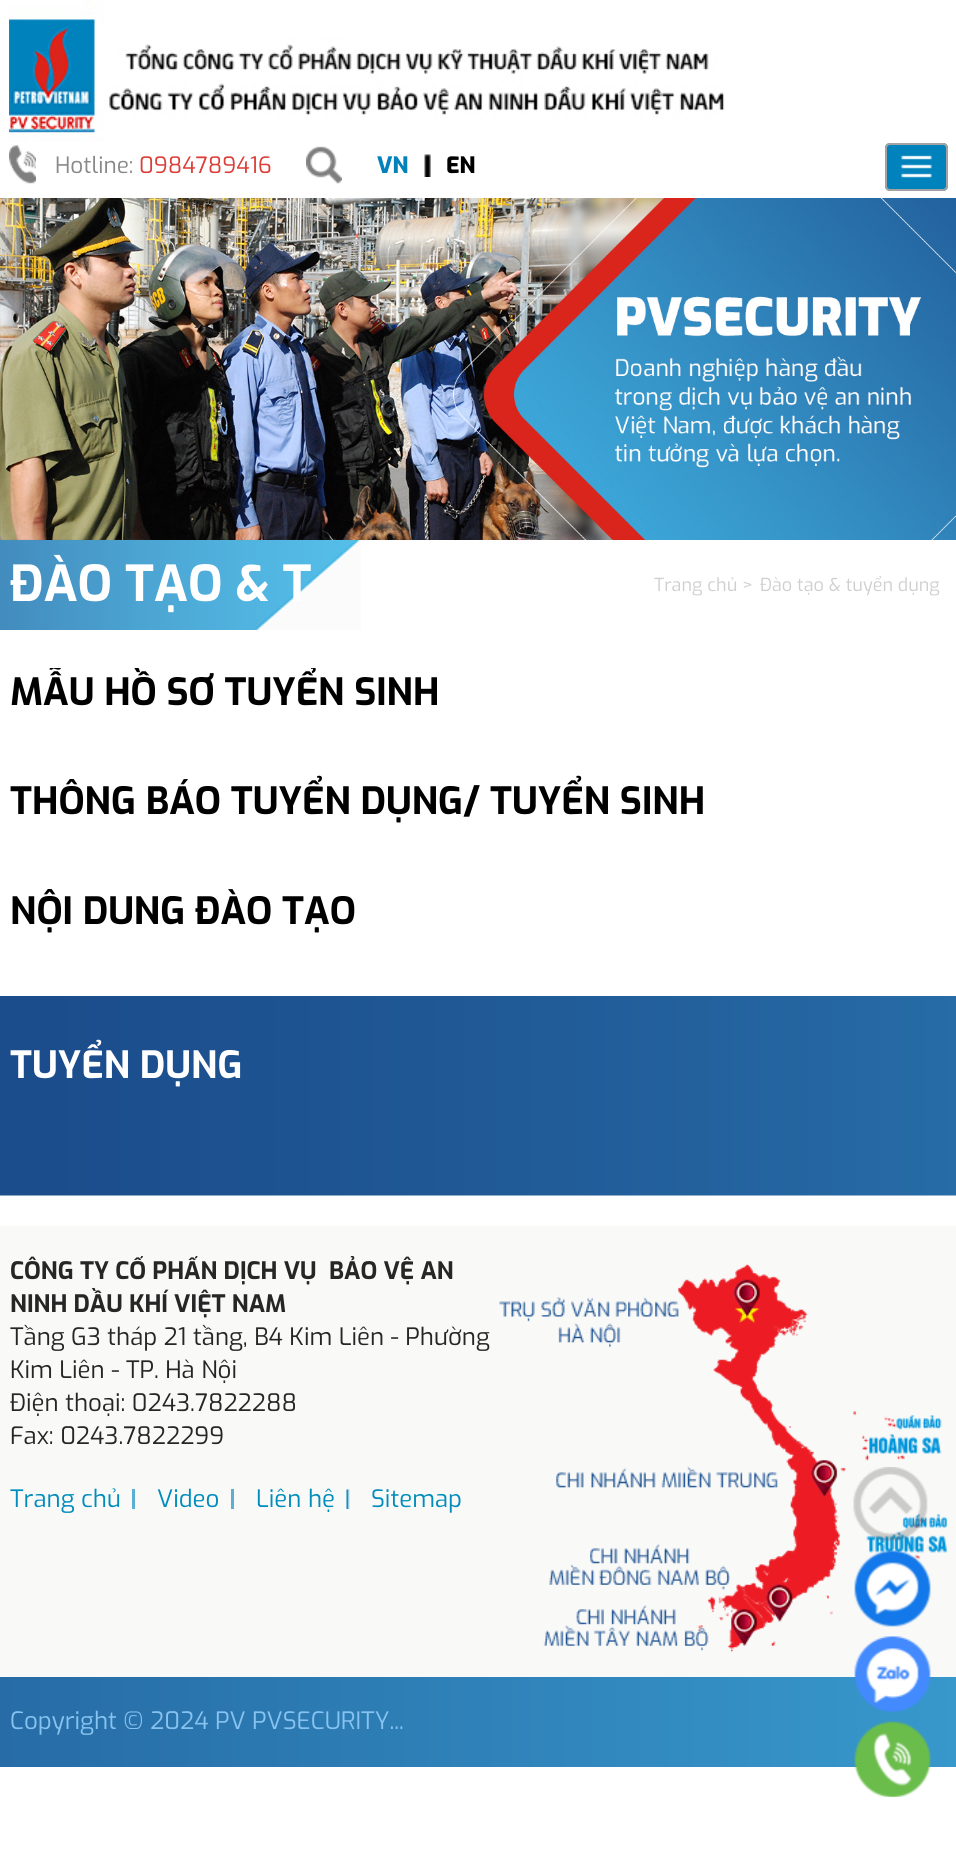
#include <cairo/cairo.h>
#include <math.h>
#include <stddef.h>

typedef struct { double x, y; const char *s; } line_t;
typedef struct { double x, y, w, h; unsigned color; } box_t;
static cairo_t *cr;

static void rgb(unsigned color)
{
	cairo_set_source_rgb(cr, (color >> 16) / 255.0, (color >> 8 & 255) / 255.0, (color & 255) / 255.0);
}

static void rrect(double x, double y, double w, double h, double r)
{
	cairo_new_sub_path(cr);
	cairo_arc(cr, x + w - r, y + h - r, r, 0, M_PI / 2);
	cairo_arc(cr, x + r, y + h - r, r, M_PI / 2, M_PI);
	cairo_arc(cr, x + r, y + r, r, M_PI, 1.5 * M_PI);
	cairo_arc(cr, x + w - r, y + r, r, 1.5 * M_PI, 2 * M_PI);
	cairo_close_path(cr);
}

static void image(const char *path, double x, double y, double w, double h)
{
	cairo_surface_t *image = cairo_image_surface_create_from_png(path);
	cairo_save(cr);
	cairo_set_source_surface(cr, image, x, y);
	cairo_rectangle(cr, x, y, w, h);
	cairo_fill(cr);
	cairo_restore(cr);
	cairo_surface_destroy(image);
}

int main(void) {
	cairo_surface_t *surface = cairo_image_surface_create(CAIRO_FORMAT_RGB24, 956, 1871);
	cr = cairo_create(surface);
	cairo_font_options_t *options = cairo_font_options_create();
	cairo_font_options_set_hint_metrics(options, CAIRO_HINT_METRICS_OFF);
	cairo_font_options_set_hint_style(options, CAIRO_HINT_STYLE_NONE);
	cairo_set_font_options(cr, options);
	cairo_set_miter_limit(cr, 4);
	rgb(0xffffff);
	cairo_paint(cr);
	image("img/1.png", 9, 0, 716, 142);
	image("img/2.png", 9, 145, 27, 39);
	image("img/3.png", 306, 146, 36, 38);
	image("img/4.png", 424, 154, 7, 23);
	rgb(0x0082bc);
	rrect(885, 143, 63, 48, 5);
	cairo_fill(cr);
	image("img/5.png", 901, 155, 31, 23);
	rrect(886, 144, 61, 46, 4);
	rgb(0xa3a3a3);
	cairo_stroke(cr);
	image("img/6.png", 0, 198, 956, 342);
	image("img/7.png", 0, 540, 361, 90);
	image("img/8.png", 0, 996, 956, 200);
	{
		static const box_t items[] = {
			{0, 1226, 956, 451, 0xf9f9f8},
			{132, 1489, 3, 20, 0x5caed2},
			{231, 1489, 3, 20, 0x5caed2},
		};
		for (size_t i = 0; i < sizeof items / sizeof *items; i++) {
			rgb(items[i].color);
			cairo_rectangle(cr, items[i].x, items[i].y, items[i].w, items[i].h);
			cairo_fill(cr);
		}
	}
	image("img/9.png", 346, 1489, 4, 20);
	image("img/10.png", 499, 1264, 448, 388);
	image("img/11.png", 853, 1467, 75, 74);
	image("img/12.png", 854, 1550, 77, 77);
	image("img/15.png", 0, 1677, 956, 90);
	image("img/13.png", 854, 1636, 77, 76);
	image("img/14.png", 854, 1721, 77, 76);
	cairo_select_font_face(cr, "Exo", CAIRO_FONT_SLANT_NORMAL, CAIRO_FONT_WEIGHT_NORMAL);
	cairo_set_font_size(cr, 22.5);
	rgb(0x888888);
	cairo_move_to(cr, 55, 173);
	cairo_show_text(cr, "Hotline:");
	rgb(0xdc3d37);
	cairo_move_to(cr, 139, 173);
	cairo_show_text(cr, "0984789416");
	cairo_select_font_face(cr, "Exo ExtraBold", CAIRO_FONT_SLANT_NORMAL, CAIRO_FONT_WEIGHT_NORMAL);
	rgb(0x0381bb);
	cairo_move_to(cr, 377, 173);
	cairo_show_text(cr, "VN");
	rgb(0x000000);
	cairo_move_to(cr, 446, 173);
	cairo_show_text(cr, "EN");
	cairo_select_font_face(cr, "Exo", CAIRO_FONT_SLANT_NORMAL, CAIRO_FONT_WEIGHT_BOLD);
	cairo_set_font_size(cr, 49.5);
	rgb(0xffffff);
	cairo_move_to(cr, 10, 601);
	cairo_show_text(cr, "ĐÀO TẠO & T");
	cairo_select_font_face(cr, "Exo", CAIRO_FONT_SLANT_NORMAL, CAIRO_FONT_WEIGHT_NORMAL);
	cairo_set_font_size(cr, 18);
	rgb(0xcfcfcf);
	cairo_move_to(cr, 654, 591);
	cairo_show_text(cr, "Trang chủ >");
	cairo_move_to(cr, 760, 591);
	cairo_show_text(cr, "Đào tạo & tuyển dụng");
	cairo_save(cr);
	cairo_rectangle(cr, 0, 668, 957, 558);
	cairo_clip(cr);
	cairo_select_font_face(cr, "Exo", CAIRO_FONT_SLANT_NORMAL, CAIRO_FONT_WEIGHT_BOLD);
	cairo_set_font_size(cr, 37.5);
	rgb(0x000000);
	cairo_move_to(cr, 10, 705);
	cairo_show_text(cr, "MẪU HỒ SƠ TUYỂN SINH");
	cairo_restore(cr);
	cairo_select_font_face(cr, "Exo", CAIRO_FONT_SLANT_NORMAL, CAIRO_FONT_WEIGHT_BOLD);
	cairo_set_font_size(cr, 37.5);
	rgb(0x000000);
	cairo_move_to(cr, 10, 814);
	cairo_show_text(cr, "THÔNG BÁO TUYỂN DỤNG/ TUYỂN SINH");
	cairo_move_to(cr, 10, 924);
	cairo_show_text(cr, "NỘI DUNG ĐÀO TẠO");
	rgb(0xffffff);
	cairo_move_to(cr, 10, 1078);
	cairo_show_text(cr, "TUYỂN DỤNG");
	cairo_save(cr);
	cairo_rectangle(cr, 9, 1256, 489, 270);
	cairo_clip(cr);
	cairo_set_font_size(cr, 24);
	rgb(0x262626);
	cairo_move_to(cr, 10, 1279);
	cairo_show_text(cr, "CÔNG TY CỔ PHẨN DỊCH VỤ  BẢO VỆ AN");
	cairo_restore(cr);
	cairo_set_font_size(cr, 24);
	rgb(0x262626);
	cairo_move_to(cr, 10, 1312);
	cairo_show_text(cr, "NINH DẦU KHÍ VIỆT NAM");
	cairo_select_font_face(cr, "Exo", CAIRO_FONT_SLANT_NORMAL, CAIRO_FONT_WEIGHT_NORMAL);
	{
		static const line_t items[] = {
			{10, 1345, "Tầng G3 tháp 21 tầng, B4 Kim Liên - Phường"},
			{10, 1378, "Kim Liên - TP. Hà Nội"},
			{10, 1411, "Điện thoại: 0243.7822288"},
			{10, 1444, "Fax: 0243.7822299"},
		};
		for (size_t i = 0; i < sizeof items / sizeof *items; i++) {
			cairo_move_to(cr, items[i].x, items[i].y);
			cairo_show_text(cr, items[i].s);
		}
	}
	rgb(0x008cbc);
	{
		static const line_t items[] = {
			{10, 1507, "Trang chủ"},
			{157, 1507, "Video"},
			{256, 1507, "Liên hệ"},
			{371, 1507, "Sitemap"},
		};
		for (size_t i = 0; i < sizeof items / sizeof *items; i++) {
			cairo_move_to(cr, items[i].x, items[i].y);
			cairo_show_text(cr, items[i].s);
		}
	}
	rgb(0x87c3f0);
	cairo_move_to(cr, 10, 1729);
	cairo_show_text(cr, "Copyright © 2024 PV PVSECURITY...");
	cairo_surface_write_to_png(surface, "page.png");
	cairo_font_options_destroy(options);
	cairo_destroy(cr);
	cairo_surface_destroy(surface);
	return 0;
}
